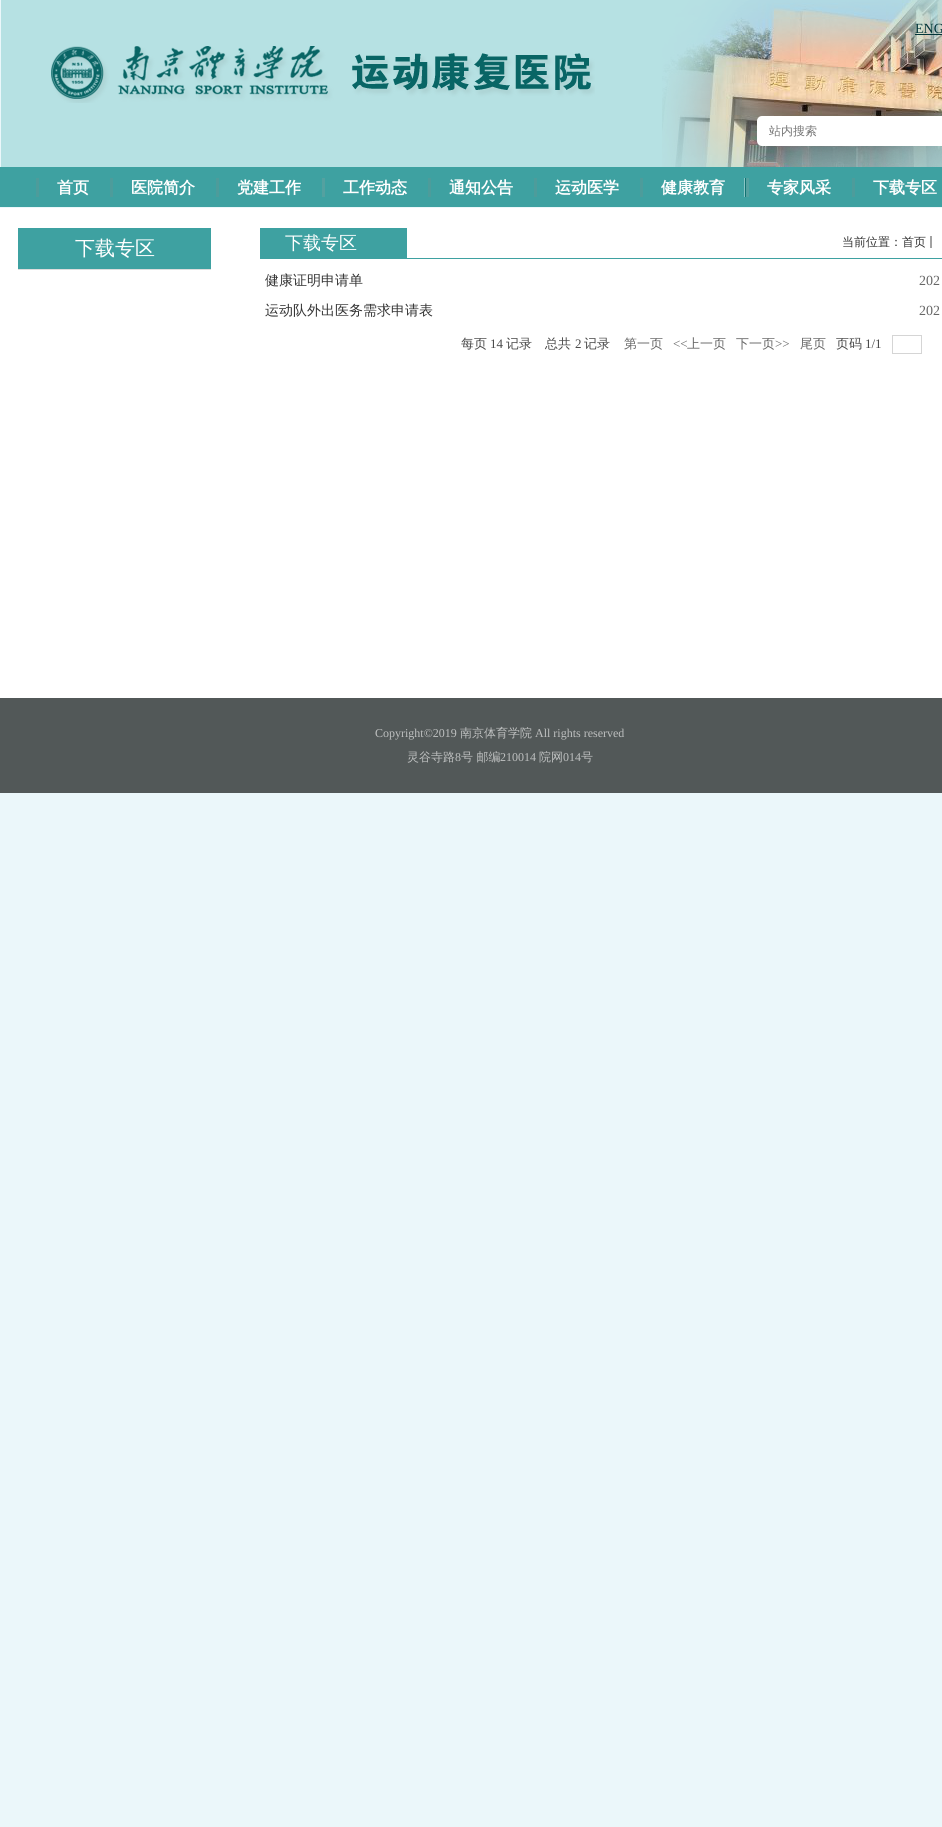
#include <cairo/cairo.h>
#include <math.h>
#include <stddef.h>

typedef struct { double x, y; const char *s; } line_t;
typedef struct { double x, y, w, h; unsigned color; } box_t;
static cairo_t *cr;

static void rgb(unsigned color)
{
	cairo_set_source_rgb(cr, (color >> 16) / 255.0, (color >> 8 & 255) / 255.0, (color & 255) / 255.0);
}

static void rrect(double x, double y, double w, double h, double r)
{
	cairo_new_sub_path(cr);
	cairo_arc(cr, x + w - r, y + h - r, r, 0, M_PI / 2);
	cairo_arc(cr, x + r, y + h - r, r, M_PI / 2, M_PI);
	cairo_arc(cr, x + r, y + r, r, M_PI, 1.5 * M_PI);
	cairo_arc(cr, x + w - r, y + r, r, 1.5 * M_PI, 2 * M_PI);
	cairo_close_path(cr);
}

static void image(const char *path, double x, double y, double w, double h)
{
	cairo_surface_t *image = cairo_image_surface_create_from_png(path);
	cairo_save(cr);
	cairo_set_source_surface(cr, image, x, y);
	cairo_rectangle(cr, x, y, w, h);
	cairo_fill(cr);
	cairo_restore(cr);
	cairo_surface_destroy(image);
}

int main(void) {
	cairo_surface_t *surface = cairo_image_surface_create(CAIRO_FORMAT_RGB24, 942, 1827);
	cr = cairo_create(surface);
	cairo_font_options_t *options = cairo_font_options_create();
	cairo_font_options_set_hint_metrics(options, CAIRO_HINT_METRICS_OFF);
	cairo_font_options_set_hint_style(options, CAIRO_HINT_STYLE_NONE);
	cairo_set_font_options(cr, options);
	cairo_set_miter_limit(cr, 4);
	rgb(0xebf7fa);
	cairo_paint(cr);
	image("img/1.png", 1, 0, 941, 167);
	rgb(0x023539);
	cairo_rectangle(cr, 915, 34, 27, 1);
	cairo_fill(cr);
	image("img/2.png", 51, 46, 544, 57);
	rgb(0xffffff);
	rrect(757, 116, 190, 30, 5);
	cairo_fill(cr);
	{
		static const box_t items[] = {
			{0, 167, 942, 40, 0x3ea1a1},
			{36, 178, 3, 19, 0x4d9c9b},
			{110, 178, 3, 19, 0x4d9c9b},
			{216, 178, 3, 19, 0x4d9c9b},
			{322, 178, 3, 19, 0x54a1a0},
			{428, 178, 3, 19, 0x4d9c9b},
			{534, 178, 3, 19, 0x4d9c9b},
		};
		for (size_t i = 0; i < sizeof items / sizeof *items; i++) {
			rgb(items[i].color);
			cairo_rectangle(cr, items[i].x, items[i].y, items[i].w, items[i].h);
			cairo_fill(cr);
		}
	}
	image("img/3.png", 744, 178, 2, 19);
	{
		static const box_t items[] = {
			{640, 178, 3, 19, 0x4d9c9b},
			{746, 178, 3, 19, 0x54a1a0},
			{852, 178, 3, 19, 0x4d9c9b},
			{0, 208, 942, 490, 0xffffff},
			{18, 228, 193, 41, 0x3ea1a1},
			{18, 269, 193, 1, 0xdddddd},
			{260, 258, 682, 1, 0x3ea1a1},
			{260, 228, 147, 30, 0x3ea1a1},
			{930, 236, 2, 12, 0xa2a2a2},
		};
		for (size_t i = 0; i < sizeof items / sizeof *items; i++) {
			rgb(items[i].color);
			cairo_rectangle(cr, items[i].x, items[i].y, items[i].w, items[i].h);
			cairo_fill(cr);
		}
	}
	cairo_rectangle(cr, 892.5, 335.5, 29, 18);
	rgb(0xd5d5d5);
	cairo_set_line_width(cr, 1);
	cairo_stroke(cr);
	rgb(0x525858);
	cairo_rectangle(cr, 0, 698, 942, 95);
	cairo_fill(cr);
	cairo_select_font_face(cr, "Liberation Serif", CAIRO_FONT_SLANT_NORMAL, CAIRO_FONT_WEIGHT_NORMAL);
	cairo_set_font_size(cr, 14);
	rgb(0x023539);
	cairo_move_to(cr, 915, 33);
	cairo_show_text(cr, "ENG");
	cairo_select_font_face(cr, "WenQuanYi Zen Hei Medium", CAIRO_FONT_SLANT_NORMAL, CAIRO_FONT_WEIGHT_NORMAL);
	cairo_set_font_size(cr, 12);
	rgb(0x757575);
	cairo_move_to(cr, 769, 135);
	cairo_show_text(cr, "站内搜索");
	cairo_select_font_face(cr, "WenQuanYi Zen Hei", CAIRO_FONT_SLANT_NORMAL, CAIRO_FONT_WEIGHT_BOLD);
	cairo_set_font_size(cr, 16);
	rgb(0xffffff);
	{
		static const line_t items[] = {
			{57, 193, "首页"},
			{131, 193, "医院简介"},
			{237, 193, "党建工作"},
			{343, 193, "工作动态"},
			{449, 193, "通知公告"},
			{555, 193, "运动医学"},
			{661, 193, "健康教育"},
			{767, 193, "专家风采"},
			{873, 193, "下载专区"},
		};
		for (size_t i = 0; i < sizeof items / sizeof *items; i++) {
			cairo_move_to(cr, items[i].x, items[i].y);
			cairo_show_text(cr, items[i].s);
		}
	}
	cairo_select_font_face(cr, "WenQuanYi Zen Hei Medium", CAIRO_FONT_SLANT_NORMAL, CAIRO_FONT_WEIGHT_NORMAL);
	cairo_set_font_size(cr, 20);
	cairo_move_to(cr, 75, 255);
	cairo_show_text(cr, "下载专区");
	cairo_set_font_size(cr, 18);
	cairo_move_to(cr, 285, 249);
	cairo_show_text(cr, "下载专区");
	cairo_set_font_size(cr, 12);
	rgb(0x333333);
	cairo_move_to(cr, 842, 246);
	cairo_show_text(cr, "当前位置：首页");
	cairo_set_font_size(cr, 14);
	cairo_move_to(cr, 265, 285);
	cairo_show_text(cr, "健康证明申请单");
	cairo_select_font_face(cr, "Liberation Serif", CAIRO_FONT_SLANT_NORMAL, CAIRO_FONT_WEIGHT_NORMAL);
	rgb(0x666666);
	cairo_move_to(cr, 919, 285);
	cairo_show_text(cr, "202");
	cairo_select_font_face(cr, "WenQuanYi Zen Hei Medium", CAIRO_FONT_SLANT_NORMAL, CAIRO_FONT_WEIGHT_NORMAL);
	rgb(0x333333);
	cairo_move_to(cr, 265, 315);
	cairo_show_text(cr, "运动队外出医务需求申请表");
	cairo_select_font_face(cr, "Liberation Serif", CAIRO_FONT_SLANT_NORMAL, CAIRO_FONT_WEIGHT_NORMAL);
	rgb(0x666666);
	cairo_move_to(cr, 919, 315);
	cairo_show_text(cr, "202");
	cairo_select_font_face(cr, "WenQuanYi Zen Hei Medium", CAIRO_FONT_SLANT_NORMAL, CAIRO_FONT_WEIGHT_NORMAL);
	cairo_set_font_size(cr, 13);
	rgb(0x494949);
	cairo_move_to(cr, 461, 348);
	cairo_show_text(cr, "每页");
	cairo_select_font_face(cr, "Liberation Serif", CAIRO_FONT_SLANT_NORMAL, CAIRO_FONT_WEIGHT_NORMAL);
	cairo_move_to(cr, 490, 348);
	cairo_show_text(cr, "14");
	cairo_select_font_face(cr, "WenQuanYi Zen Hei Medium", CAIRO_FONT_SLANT_NORMAL, CAIRO_FONT_WEIGHT_NORMAL);
	cairo_move_to(cr, 506, 348);
	cairo_show_text(cr, "记录");
	cairo_move_to(cr, 545, 348);
	cairo_show_text(cr, "总共");
	cairo_select_font_face(cr, "Liberation Serif", CAIRO_FONT_SLANT_NORMAL, CAIRO_FONT_WEIGHT_NORMAL);
	cairo_move_to(cr, 575, 348);
	cairo_show_text(cr, "2");
	cairo_select_font_face(cr, "WenQuanYi Zen Hei Medium", CAIRO_FONT_SLANT_NORMAL, CAIRO_FONT_WEIGHT_NORMAL);
	cairo_move_to(cr, 584, 348);
	cairo_show_text(cr, "记录");
	rgb(0x666666);
	cairo_move_to(cr, 624, 348);
	cairo_show_text(cr, "第一页");
	cairo_select_font_face(cr, "Liberation Serif", CAIRO_FONT_SLANT_NORMAL, CAIRO_FONT_WEIGHT_NORMAL);
	cairo_move_to(cr, 673, 348);
	cairo_show_text(cr, "<<");
	cairo_select_font_face(cr, "WenQuanYi Zen Hei Medium", CAIRO_FONT_SLANT_NORMAL, CAIRO_FONT_WEIGHT_NORMAL);
	cairo_move_to(cr, 687, 348);
	cairo_show_text(cr, "上一页");
	cairo_move_to(cr, 736, 348);
	cairo_show_text(cr, "下一页");
	cairo_select_font_face(cr, "Liberation Serif", CAIRO_FONT_SLANT_NORMAL, CAIRO_FONT_WEIGHT_NORMAL);
	cairo_move_to(cr, 775, 348);
	cairo_show_text(cr, ">>");
	cairo_select_font_face(cr, "WenQuanYi Zen Hei Medium", CAIRO_FONT_SLANT_NORMAL, CAIRO_FONT_WEIGHT_NORMAL);
	cairo_move_to(cr, 800, 348);
	cairo_show_text(cr, "尾页");
	rgb(0x494949);
	cairo_move_to(cr, 836, 348);
	cairo_show_text(cr, "页码");
	cairo_select_font_face(cr, "Liberation Serif", CAIRO_FONT_SLANT_NORMAL, CAIRO_FONT_WEIGHT_NORMAL);
	cairo_move_to(cr, 865, 348);
	cairo_show_text(cr, "1/1");
	cairo_set_font_size(cr, 12);
	rgb(0xbec0c0);
	cairo_move_to(cr, 375, 737);
	cairo_show_text(cr, "Copyright©2019");
	cairo_select_font_face(cr, "WenQuanYi Zen Hei Medium", CAIRO_FONT_SLANT_NORMAL, CAIRO_FONT_WEIGHT_NORMAL);
	cairo_move_to(cr, 460, 737);
	cairo_show_text(cr, "南京体育学院");
	cairo_select_font_face(cr, "Liberation Serif", CAIRO_FONT_SLANT_NORMAL, CAIRO_FONT_WEIGHT_NORMAL);
	cairo_move_to(cr, 535, 737);
	cairo_show_text(cr, "All rights reserved");
	cairo_select_font_face(cr, "WenQuanYi Zen Hei Medium", CAIRO_FONT_SLANT_NORMAL, CAIRO_FONT_WEIGHT_NORMAL);
	cairo_move_to(cr, 407, 761);
	cairo_show_text(cr, "灵谷寺路");
	cairo_select_font_face(cr, "Liberation Serif", CAIRO_FONT_SLANT_NORMAL, CAIRO_FONT_WEIGHT_NORMAL);
	cairo_move_to(cr, 455, 761);
	cairo_show_text(cr, "8");
	cairo_select_font_face(cr, "WenQuanYi Zen Hei Medium", CAIRO_FONT_SLANT_NORMAL, CAIRO_FONT_WEIGHT_NORMAL);
	cairo_move_to(cr, 461, 761);
	cairo_show_text(cr, "号 邮编");
	cairo_select_font_face(cr, "Liberation Serif", CAIRO_FONT_SLANT_NORMAL, CAIRO_FONT_WEIGHT_NORMAL);
	cairo_move_to(cr, 500, 761);
	cairo_show_text(cr, "210014");
	cairo_select_font_face(cr, "WenQuanYi Zen Hei Medium", CAIRO_FONT_SLANT_NORMAL, CAIRO_FONT_WEIGHT_NORMAL);
	cairo_move_to(cr, 539, 761);
	cairo_show_text(cr, "院网");
	cairo_select_font_face(cr, "Liberation Serif", CAIRO_FONT_SLANT_NORMAL, CAIRO_FONT_WEIGHT_NORMAL);
	cairo_move_to(cr, 563, 761);
	cairo_show_text(cr, "014");
	cairo_select_font_face(cr, "WenQuanYi Zen Hei Medium", CAIRO_FONT_SLANT_NORMAL, CAIRO_FONT_WEIGHT_NORMAL);
	cairo_move_to(cr, 581, 761);
	cairo_show_text(cr, "号");
	cairo_surface_write_to_png(surface, "page.png");
	cairo_font_options_destroy(options);
	cairo_destroy(cr);
	cairo_surface_destroy(surface);
	return 0;
}
